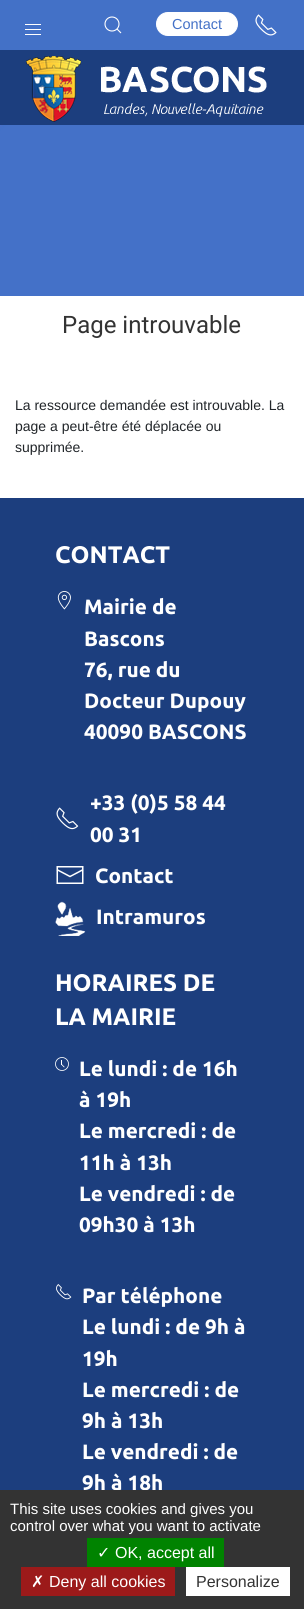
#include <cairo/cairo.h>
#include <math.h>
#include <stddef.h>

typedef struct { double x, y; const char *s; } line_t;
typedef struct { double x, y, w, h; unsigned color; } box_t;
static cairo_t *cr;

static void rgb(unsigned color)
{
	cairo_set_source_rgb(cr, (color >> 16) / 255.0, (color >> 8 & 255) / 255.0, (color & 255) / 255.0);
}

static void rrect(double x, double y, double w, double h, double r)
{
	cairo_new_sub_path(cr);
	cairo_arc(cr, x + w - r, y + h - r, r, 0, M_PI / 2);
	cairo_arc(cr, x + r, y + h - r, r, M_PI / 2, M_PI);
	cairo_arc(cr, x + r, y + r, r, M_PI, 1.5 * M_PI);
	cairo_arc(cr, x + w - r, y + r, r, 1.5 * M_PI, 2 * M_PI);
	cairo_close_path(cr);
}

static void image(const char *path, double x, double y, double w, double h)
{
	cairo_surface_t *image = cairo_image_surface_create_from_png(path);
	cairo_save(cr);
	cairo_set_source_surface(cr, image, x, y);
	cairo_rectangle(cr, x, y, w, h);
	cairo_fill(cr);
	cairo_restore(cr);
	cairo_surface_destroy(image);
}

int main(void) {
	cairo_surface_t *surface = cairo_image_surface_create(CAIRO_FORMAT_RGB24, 304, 1609);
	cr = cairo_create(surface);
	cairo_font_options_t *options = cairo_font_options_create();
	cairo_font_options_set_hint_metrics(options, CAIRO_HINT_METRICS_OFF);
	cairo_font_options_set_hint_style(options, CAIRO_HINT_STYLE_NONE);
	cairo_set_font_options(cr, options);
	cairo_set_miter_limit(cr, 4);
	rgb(0xffffff);
	cairo_paint(cr);
	{
		static const box_t items[] = {
			{0, 0, 304, 50, 0x4371c7},
			{25, 24, 16, 1, 0xffffff},
			{25, 29, 16, 1, 0xffffff},
			{25, 34, 16, 1, 0xffffff},
		};
		for (size_t i = 0; i < sizeof items / sizeof *items; i++) {
			rgb(items[i].color);
			cairo_rectangle(cr, items[i].x, items[i].y, items[i].w, items[i].h);
			cairo_fill(cr);
		}
	}
	cairo_arc(cr, 112, 24, 7, 0, 2 * M_PI);
	cairo_set_line_width(cr, 1.1);
	cairo_stroke(cr);
	cairo_new_path(cr);
	cairo_move_to(cr, 117, 29);
	cairo_line_to(cr, 121, 33);
	cairo_close_path(cr);
	cairo_stroke(cr);
	rrect(156.5, 12.5, 81, 23, 11.5);
	cairo_fill_preserve(cr);
	cairo_set_line_width(cr, 1);
	cairo_stroke(cr);
	image("img/1.png", 255, 14, 22, 22);
	rgb(0x1c3e7e);
	cairo_rectangle(cr, 0, 50, 304, 75);
	cairo_fill(cr);
	image("img/2.png", 26, 56, 241, 66);
	image("img/3.png", 0, 125, 304, 171);
	cairo_rectangle(cr, 0, 498, 304, 992);
	cairo_fill(cr);
	image("img/4.png", 57, 591, 14, 19);
	image("img/5.png", 56, 807, 23, 23);
	image("img/6.png", 56, 866, 28, 18);
	image("img/7.png", 55, 901, 31, 35);
	image("img/8.png", 55, 1057, 14, 14);
	image("img/9.png", 56, 1284, 16, 16);
	cairo_select_font_face(cr, "Liberation Sans", CAIRO_FONT_SLANT_NORMAL, CAIRO_FONT_WEIGHT_NORMAL);
	cairo_set_font_size(cr, 14.5);
	rgb(0x4371c7);
	cairo_move_to(cr, 172, 29);
	cairo_show_text(cr, "Contact");
	cairo_select_font_face(cr, "Roboto", CAIRO_FONT_SLANT_NORMAL, CAIRO_FONT_WEIGHT_NORMAL);
	cairo_set_font_size(cr, 24);
	rgb(0x333333);
	cairo_move_to(cr, 62, 333);
	cairo_show_text(cr, "Page introuvable");
	cairo_select_font_face(cr, "Liberation Sans", CAIRO_FONT_SLANT_NORMAL, CAIRO_FONT_WEIGHT_NORMAL);
	cairo_set_font_size(cr, 14);
	rgb(0x212529);
	{
		static const line_t items[] = {
			{15, 410, "La ressource demandée est introuvable. La"},
			{15, 431, "page a peut-être été déplacée ou"},
			{15, 452, "supprimée."},
		};
		for (size_t i = 0; i < sizeof items / sizeof *items; i++) {
			cairo_move_to(cr, items[i].x, items[i].y);
			cairo_show_text(cr, items[i].s);
		}
	}
	cairo_select_font_face(cr, "Ubuntu", CAIRO_FONT_SLANT_NORMAL, CAIRO_FONT_WEIGHT_BOLD);
	cairo_set_font_size(cr, 24);
	rgb(0xffffff);
	cairo_move_to(cr, 55, 563);
	cairo_show_text(cr, "CONTACT");
	cairo_set_font_size(cr, 20.75);
	{
		static const line_t items[] = {
			{84, 614, "Mairie de"},
			{84, 646, "Bascons"},
			{84, 677, "76, rue du"},
			{84, 708, "Docteur Dupouy"},
			{84, 739, "40090 BASCONS"},
			{90, 810, "+33 (0)5 58 44"},
			{90, 842, "00 31"},
			{95, 883, "Contact"},
			{96, 924, "Intramuros"},
		};
		for (size_t i = 0; i < sizeof items / sizeof *items; i++) {
			cairo_move_to(cr, items[i].x, items[i].y);
			cairo_show_text(cr, items[i].s);
		}
	}
	cairo_set_font_size(cr, 24);
	cairo_move_to(cr, 55, 991);
	cairo_show_text(cr, "HORAIRES DE");
	cairo_move_to(cr, 55, 1025);
	cairo_show_text(cr, "LA MAIRIE");
	cairo_set_font_size(cr, 20.75);
	{
		static const line_t items[] = {
			{79, 1076, "Le lundi : de 16h"},
			{79, 1107, "à 19h"},
			{79, 1138, "Le mercredi : de"},
			{79, 1170, "11h à 13h"},
			{79, 1201, "Le vendredi : de"},
			{79, 1232, "09h30 à 13h"},
			{82, 1303, "Par téléphone"},
			{82, 1334, "Le lundi : de 9h à"},
			{82, 1366, "19h"},
			{82, 1397, "Le mercredi : de"},
			{82, 1428, "9h à 13h"},
			{82, 1459, "Le vendredi : de"},
			{82, 1490, "9h à 18h"},
		};
		for (size_t i = 0; i < sizeof items / sizeof *items; i++) {
			cairo_move_to(cr, items[i].x, items[i].y);
			cairo_show_text(cr, items[i].s);
		}
	}
	rgb(0x333333);
	cairo_rectangle(cr, 0, 1490, 304, 119);
	cairo_fill(cr);
	cairo_select_font_face(cr, "Liberation Sans", CAIRO_FONT_SLANT_NORMAL, CAIRO_FONT_WEIGHT_NORMAL);
	cairo_set_font_size(cr, 15);
	rgb(0xffffff);
	cairo_move_to(cr, 10, 1514);
	cairo_show_text(cr, "This site uses cookies and gives you");
	cairo_move_to(cr, 10, 1531);
	cairo_show_text(cr, "control over what you want to activate");
	rgb(0x008300);
	cairo_rectangle(cr, 87, 1538, 137, 29);
	cairo_fill(cr);
	cairo_select_font_face(cr, "DejaVu Sans", CAIRO_FONT_SLANT_NORMAL, CAIRO_FONT_WEIGHT_NORMAL);
	cairo_set_font_size(cr, 16);
	rgb(0xffffff);
	cairo_move_to(cr, 97, 1558);
	cairo_show_text(cr, "✓");
	cairo_select_font_face(cr, "Liberation Sans", CAIRO_FONT_SLANT_NORMAL, CAIRO_FONT_WEIGHT_NORMAL);
	cairo_move_to(cr, 115, 1558);
	cairo_show_text(cr, "OK, accept all");
	rgb(0x9c1a1a);
	cairo_rectangle(cr, 21, 1567, 154, 29);
	cairo_fill(cr);
	cairo_select_font_face(cr, "DejaVu Sans", CAIRO_FONT_SLANT_NORMAL, CAIRO_FONT_WEIGHT_NORMAL);
	rgb(0xffffff);
	cairo_move_to(cr, 31, 1587);
	cairo_show_text(cr, "✗");
	cairo_select_font_face(cr, "Liberation Sans", CAIRO_FONT_SLANT_NORMAL, CAIRO_FONT_WEIGHT_NORMAL);
	cairo_move_to(cr, 49, 1587);
	cairo_show_text(cr, "Deny all cookies");
	cairo_rectangle(cr, 186, 1567, 104, 29);
	cairo_fill(cr);
	rgb(0x333333);
	cairo_move_to(cr, 196, 1587);
	cairo_show_text(cr, "Personalize");
	cairo_surface_write_to_png(surface, "page.png");
	cairo_font_options_destroy(options);
	cairo_destroy(cr);
	cairo_surface_destroy(surface);
	return 0;
}
